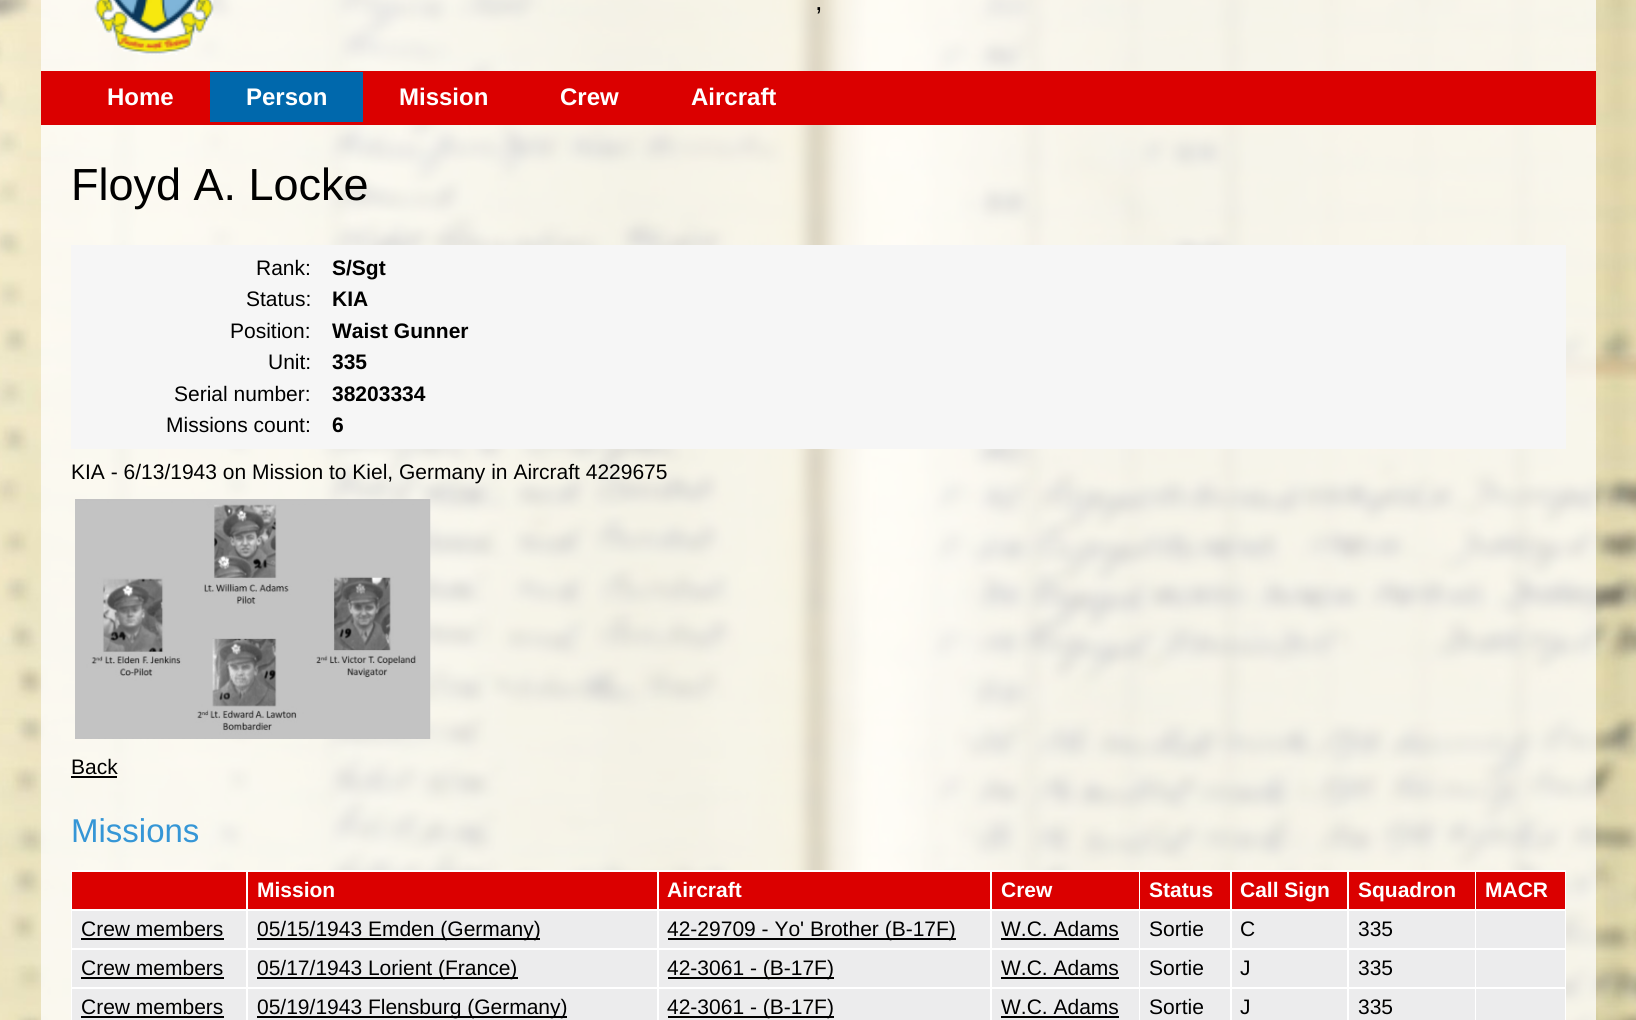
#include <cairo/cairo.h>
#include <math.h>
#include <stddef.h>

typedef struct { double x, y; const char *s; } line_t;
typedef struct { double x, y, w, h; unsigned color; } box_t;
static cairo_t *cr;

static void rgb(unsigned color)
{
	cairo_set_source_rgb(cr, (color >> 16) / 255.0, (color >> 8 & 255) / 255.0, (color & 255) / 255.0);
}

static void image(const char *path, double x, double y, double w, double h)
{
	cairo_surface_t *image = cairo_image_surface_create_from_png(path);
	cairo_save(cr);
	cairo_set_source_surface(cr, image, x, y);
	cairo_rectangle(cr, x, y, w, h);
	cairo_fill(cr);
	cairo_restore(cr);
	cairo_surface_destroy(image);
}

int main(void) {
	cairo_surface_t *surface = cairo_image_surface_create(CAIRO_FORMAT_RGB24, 1636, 1020);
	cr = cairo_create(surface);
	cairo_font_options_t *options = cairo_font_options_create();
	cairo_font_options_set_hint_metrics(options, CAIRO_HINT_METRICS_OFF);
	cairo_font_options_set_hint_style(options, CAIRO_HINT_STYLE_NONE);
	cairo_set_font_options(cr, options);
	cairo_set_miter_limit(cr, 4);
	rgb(0xffffff);
	cairo_paint(cr);
	image("img/1.png", 0, 0, 1636, 1020);
	image("img/2.png", 94, 0, 120, 55);
	{
		static const box_t items[] = {
			{41, 71, 1555, 54, 0xdb0000},
			{210, 72, 153, 50, 0x0068ac},
			{71, 245, 1495, 204, 0xf6f6f6},
		};
		for (size_t i = 0; i < sizeof items / sizeof *items; i++) {
			rgb(items[i].color);
			cairo_rectangle(cr, items[i].x, items[i].y, items[i].w, items[i].h);
			cairo_fill(cr);
		}
	}
	image("img/3.png", 75, 499, 356, 240);
	{
		static const box_t items[] = {
			{71, 776, 46, 2, 0x000000},
			{71, 870, 1495, 150, 0xffffff},
			{72, 872, 174, 37, 0xdb0000},
			{248, 872, 409, 37, 0xdb0000},
			{659, 872, 331, 37, 0xdb0000},
			{992, 872, 147, 37, 0xdb0000},
			{1140, 872, 90, 37, 0xdb0000},
			{1232, 872, 115, 37, 0xdb0000},
			{1349, 872, 126, 37, 0xdb0000},
			{1476, 872, 89, 37, 0xdb0000},
			{72, 911, 174, 37, 0xececed},
			{81, 938, 143, 2, 0x000000},
			{248, 911, 409, 37, 0xececed},
			{257, 938, 283, 2, 0x000000},
			{659, 911, 331, 37, 0xececed},
			{668, 938, 288, 2, 0x000000},
			{992, 911, 147, 37, 0xececed},
			{1001, 938, 118, 2, 0x000000},
			{1140, 911, 90, 37, 0xececed},
			{1232, 911, 115, 37, 0xececed},
			{1349, 911, 126, 37, 0xececed},
			{1476, 911, 89, 37, 0xececed},
			{72, 950, 174, 37, 0xececed},
			{81, 977, 143, 2, 0x000000},
			{248, 950, 409, 37, 0xececed},
			{257, 977, 261, 2, 0x000000},
			{659, 950, 331, 37, 0xececed},
			{668, 977, 166, 2, 0x000000},
			{992, 950, 147, 37, 0xececed},
			{1001, 977, 118, 2, 0x000000},
			{1140, 950, 90, 37, 0xececed},
			{1232, 950, 115, 37, 0xececed},
			{1349, 950, 126, 37, 0xececed},
			{1476, 950, 89, 37, 0xececed},
			{72, 989, 174, 31, 0xececed},
			{81, 1016, 143, 2, 0x000000},
			{248, 989, 409, 31, 0xececed},
			{257, 1016, 310, 2, 0x000000},
			{659, 989, 331, 31, 0xececed},
			{668, 1016, 166, 2, 0x000000},
			{992, 989, 147, 31, 0xececed},
			{1001, 1016, 118, 2, 0x000000},
			{1140, 989, 90, 31, 0xececed},
			{1232, 989, 115, 31, 0xececed},
			{1349, 989, 126, 31, 0xececed},
			{1476, 989, 89, 31, 0xececed},
		};
		for (size_t i = 0; i < sizeof items / sizeof *items; i++) {
			rgb(items[i].color);
			cairo_rectangle(cr, items[i].x, items[i].y, items[i].w, items[i].h);
			cairo_fill(cr);
		}
	}
	cairo_select_font_face(cr, "Liberation Sans", CAIRO_FONT_SLANT_NORMAL, CAIRO_FONT_WEIGHT_NORMAL);
	cairo_set_font_size(cr, 27);
	rgb(0x000000);
	cairo_move_to(cr, 815, 10);
	cairo_show_text(cr, ",");
	cairo_select_font_face(cr, "Liberation Sans", CAIRO_FONT_SLANT_NORMAL, CAIRO_FONT_WEIGHT_BOLD);
	cairo_set_font_size(cr, 24);
	rgb(0xffffff);
	{
		static const line_t items[] = {
			{107, 105, "Home"},
			{246, 105, "Person"},
			{399, 105, "Mission"},
			{560, 105, "Crew"},
			{691, 105, "Aircraft"},
		};
		for (size_t i = 0; i < sizeof items / sizeof *items; i++) {
			cairo_move_to(cr, items[i].x, items[i].y);
			cairo_show_text(cr, items[i].s);
		}
	}
	cairo_select_font_face(cr, "Liberation Sans", CAIRO_FONT_SLANT_NORMAL, CAIRO_FONT_WEIGHT_NORMAL);
	cairo_set_font_size(cr, 45);
	rgb(0x000000);
	cairo_move_to(cr, 71, 200);
	cairo_show_text(cr, "Floyd A. Locke");
	cairo_set_font_size(cr, 21);
	cairo_move_to(cr, 256, 275);
	cairo_show_text(cr, "Rank:");
	cairo_select_font_face(cr, "Liberation Sans", CAIRO_FONT_SLANT_NORMAL, CAIRO_FONT_WEIGHT_BOLD);
	cairo_move_to(cr, 332, 275);
	cairo_show_text(cr, "S/Sgt");
	cairo_select_font_face(cr, "Liberation Sans", CAIRO_FONT_SLANT_NORMAL, CAIRO_FONT_WEIGHT_NORMAL);
	cairo_move_to(cr, 246, 306);
	cairo_show_text(cr, "Status:");
	cairo_select_font_face(cr, "Liberation Sans", CAIRO_FONT_SLANT_NORMAL, CAIRO_FONT_WEIGHT_BOLD);
	cairo_move_to(cr, 332, 306);
	cairo_show_text(cr, "KIA");
	cairo_select_font_face(cr, "Liberation Sans", CAIRO_FONT_SLANT_NORMAL, CAIRO_FONT_WEIGHT_NORMAL);
	cairo_move_to(cr, 230, 338);
	cairo_show_text(cr, "Position:");
	cairo_select_font_face(cr, "Liberation Sans", CAIRO_FONT_SLANT_NORMAL, CAIRO_FONT_WEIGHT_BOLD);
	cairo_move_to(cr, 332, 338);
	cairo_show_text(cr, "Waist Gunner");
	cairo_select_font_face(cr, "Liberation Sans", CAIRO_FONT_SLANT_NORMAL, CAIRO_FONT_WEIGHT_NORMAL);
	cairo_move_to(cr, 268, 369);
	cairo_show_text(cr, "Unit:");
	cairo_select_font_face(cr, "Liberation Sans", CAIRO_FONT_SLANT_NORMAL, CAIRO_FONT_WEIGHT_BOLD);
	cairo_move_to(cr, 332, 369);
	cairo_show_text(cr, "335");
	cairo_select_font_face(cr, "Liberation Sans", CAIRO_FONT_SLANT_NORMAL, CAIRO_FONT_WEIGHT_NORMAL);
	cairo_move_to(cr, 174, 401);
	cairo_show_text(cr, "Serial number:");
	cairo_select_font_face(cr, "Liberation Sans", CAIRO_FONT_SLANT_NORMAL, CAIRO_FONT_WEIGHT_BOLD);
	cairo_move_to(cr, 332, 401);
	cairo_show_text(cr, "38203334");
	cairo_select_font_face(cr, "Liberation Sans", CAIRO_FONT_SLANT_NORMAL, CAIRO_FONT_WEIGHT_NORMAL);
	cairo_move_to(cr, 166, 432);
	cairo_show_text(cr, "Missions count:");
	cairo_select_font_face(cr, "Liberation Sans", CAIRO_FONT_SLANT_NORMAL, CAIRO_FONT_WEIGHT_BOLD);
	cairo_move_to(cr, 332, 432);
	cairo_show_text(cr, "6");
	cairo_select_font_face(cr, "Liberation Sans", CAIRO_FONT_SLANT_NORMAL, CAIRO_FONT_WEIGHT_NORMAL);
	cairo_move_to(cr, 71, 479);
	cairo_show_text(cr, "KIA - 6/13/1943 on Mission to Kiel, Germany in Aircraft 4229675");
	cairo_move_to(cr, 71, 774);
	cairo_show_text(cr, "Back");
	cairo_set_font_size(cr, 33);
	rgb(0x3596d6);
	cairo_move_to(cr, 71, 842);
	cairo_show_text(cr, "Missions");
	cairo_select_font_face(cr, "Liberation Sans", CAIRO_FONT_SLANT_NORMAL, CAIRO_FONT_WEIGHT_BOLD);
	cairo_set_font_size(cr, 21);
	rgb(0xffffff);
	{
		static const line_t items[] = {
			{257, 897, "Mission"},
			{667, 897, "Aircraft"},
			{1001, 897, "Crew"},
			{1149, 897, "Status"},
			{1240, 897, "Call Sign"},
			{1358, 897, "Squadron"},
			{1485, 897, "MACR"},
		};
		for (size_t i = 0; i < sizeof items / sizeof *items; i++) {
			cairo_move_to(cr, items[i].x, items[i].y);
			cairo_show_text(cr, items[i].s);
		}
	}
	cairo_select_font_face(cr, "Liberation Sans", CAIRO_FONT_SLANT_NORMAL, CAIRO_FONT_WEIGHT_NORMAL);
	rgb(0x000000);
	{
		static const line_t items[] = {
			{81, 936, "Crew members"},
			{257, 936, "05/15/1943 Emden (Germany)"},
			{667, 936, "42-29709 - Yo' Brother (B-17F)"},
			{1001, 936, "W.C. Adams"},
			{1149, 936, "Sortie"},
			{1240, 936, "C"},
			{1358, 936, "335"},
			{81, 975, "Crew members"},
			{257, 975, "05/17/1943 Lorient (France)"},
			{667, 975, "42-3061 - (B-17F)"},
			{1001, 975, "W.C. Adams"},
			{1149, 975, "Sortie"},
			{1240, 975, "J"},
			{1358, 975, "335"},
			{81, 1014, "Crew members"},
			{257, 1014, "05/19/1943 Flensburg (Germany)"},
			{667, 1014, "42-3061 - (B-17F)"},
			{1001, 1014, "W.C. Adams"},
			{1149, 1014, "Sortie"},
			{1240, 1014, "J"},
			{1358, 1014, "335"},
		};
		for (size_t i = 0; i < sizeof items / sizeof *items; i++) {
			cairo_move_to(cr, items[i].x, items[i].y);
			cairo_show_text(cr, items[i].s);
		}
	}
	cairo_surface_write_to_png(surface, "page.png");
	cairo_font_options_destroy(options);
	cairo_destroy(cr);
	cairo_surface_destroy(surface);
	return 0;
}
